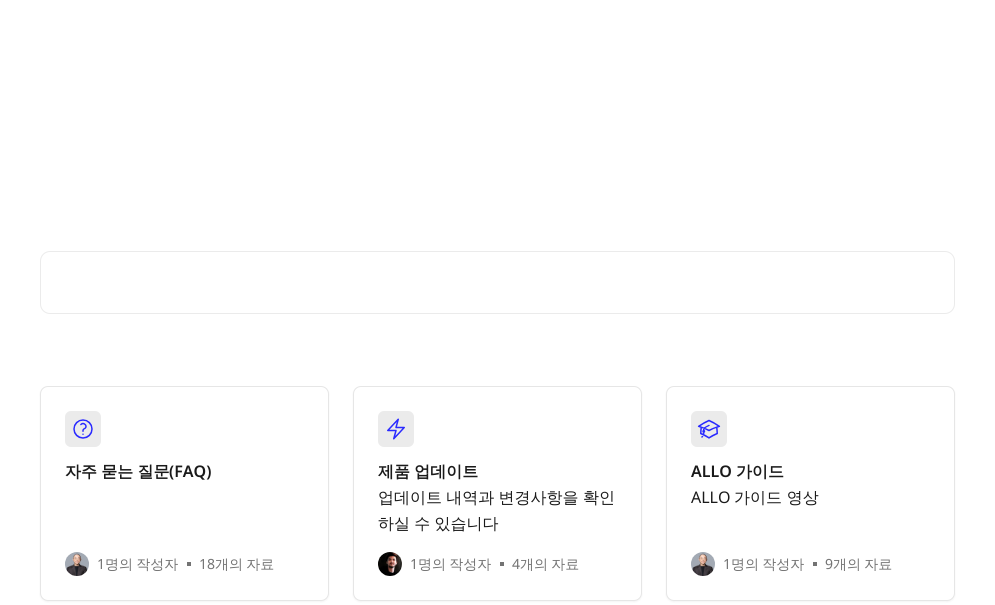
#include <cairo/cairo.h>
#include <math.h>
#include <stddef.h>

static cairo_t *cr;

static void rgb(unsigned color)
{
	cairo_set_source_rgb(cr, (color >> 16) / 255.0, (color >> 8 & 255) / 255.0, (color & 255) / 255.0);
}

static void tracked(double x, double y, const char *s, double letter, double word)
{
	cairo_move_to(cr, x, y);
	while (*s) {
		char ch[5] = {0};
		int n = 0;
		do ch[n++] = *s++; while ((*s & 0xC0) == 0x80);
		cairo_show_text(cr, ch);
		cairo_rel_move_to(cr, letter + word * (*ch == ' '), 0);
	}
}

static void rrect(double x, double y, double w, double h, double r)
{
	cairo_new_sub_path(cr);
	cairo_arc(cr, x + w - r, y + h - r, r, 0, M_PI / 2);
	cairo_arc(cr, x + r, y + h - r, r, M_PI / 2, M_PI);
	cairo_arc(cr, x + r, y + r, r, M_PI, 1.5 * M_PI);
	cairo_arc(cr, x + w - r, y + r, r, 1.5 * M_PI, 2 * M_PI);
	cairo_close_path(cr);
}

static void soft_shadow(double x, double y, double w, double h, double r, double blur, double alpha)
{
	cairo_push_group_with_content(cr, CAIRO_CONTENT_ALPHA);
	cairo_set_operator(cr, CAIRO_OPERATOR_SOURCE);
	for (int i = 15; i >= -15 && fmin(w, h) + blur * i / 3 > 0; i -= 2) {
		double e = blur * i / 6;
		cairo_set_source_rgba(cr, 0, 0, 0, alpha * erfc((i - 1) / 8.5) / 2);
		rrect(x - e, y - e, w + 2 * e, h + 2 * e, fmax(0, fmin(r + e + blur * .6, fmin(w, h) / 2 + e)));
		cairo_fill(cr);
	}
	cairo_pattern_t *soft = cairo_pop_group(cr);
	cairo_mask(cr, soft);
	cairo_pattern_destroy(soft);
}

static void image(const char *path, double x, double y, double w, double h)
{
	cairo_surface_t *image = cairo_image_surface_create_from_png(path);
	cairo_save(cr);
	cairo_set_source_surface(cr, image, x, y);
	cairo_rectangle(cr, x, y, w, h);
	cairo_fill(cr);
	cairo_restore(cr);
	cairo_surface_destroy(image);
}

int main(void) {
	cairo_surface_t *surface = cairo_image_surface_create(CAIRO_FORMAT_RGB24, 995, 605);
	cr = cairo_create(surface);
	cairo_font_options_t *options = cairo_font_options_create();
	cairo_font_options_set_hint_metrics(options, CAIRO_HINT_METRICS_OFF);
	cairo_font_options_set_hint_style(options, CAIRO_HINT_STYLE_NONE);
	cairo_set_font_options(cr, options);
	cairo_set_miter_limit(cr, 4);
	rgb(0xffffff);
	cairo_paint(cr);
	rrect(40.5, 251.5, 914, 62, 9.5);
	cairo_set_source_rgba(cr, 0, 0, 0, 0.08);
	cairo_set_line_width(cr, 1);
	cairo_stroke(cr);
	rgb(0x000000);
	soft_shadow(40, 387, 289, 215, 8, 1, 0.05);
	rgb(0xffffff);
	rrect(40.5, 386.5, 288, 214, 7.5);
	cairo_fill_preserve(cr);
	rgb(0xe6e6e6);
	cairo_stroke(cr);
	rgb(0xebebeb);
	rrect(65, 411, 36, 36, 6);
	cairo_fill(cr);
	image("img/1.png", 73, 419, 20, 20);
	image("img/2.png", 65, 552, 24, 24);
	rgb(0x737373);
	cairo_rectangle(cr, 187, 562, 4, 4);
	cairo_fill(cr);
	rgb(0x000000);
	soft_shadow(353, 387, 289, 215, 8, 1, 0.05);
	rgb(0xffffff);
	rrect(353.5, 386.5, 288, 214, 7.5);
	cairo_fill_preserve(cr);
	rgb(0xe6e6e6);
	cairo_stroke(cr);
	rgb(0xebebeb);
	rrect(378, 411, 36, 36, 6);
	cairo_fill(cr);
	image("img/3.png", 387, 418, 18, 22);
	image("img/4.png", 378, 552, 24, 24);
	rgb(0x737373);
	cairo_rectangle(cr, 500, 562, 4, 4);
	cairo_fill(cr);
	rgb(0x000000);
	soft_shadow(666, 387, 289, 215, 8, 1, 0.05);
	rgb(0xffffff);
	rrect(666.5, 386.5, 288, 214, 7.5);
	cairo_fill_preserve(cr);
	rgb(0xe6e6e6);
	cairo_stroke(cr);
	rgb(0xebebeb);
	rrect(691, 411, 36, 36, 6);
	cairo_fill(cr);
	image("img/5.png", 697, 419, 24, 20);
	image("img/6.png", 691, 552, 24, 24);
	rgb(0x737373);
	cairo_rectangle(cr, 813, 562, 4, 4);
	cairo_fill(cr);
	cairo_select_font_face(cr, "WenQuanYi Zen Hei", CAIRO_FONT_SLANT_NORMAL, CAIRO_FONT_WEIGHT_BOLD);
	cairo_set_font_size(cr, 16);
	rgb(0x1a1a1a);
	tracked(65, 477, "자주 묻는 질문", 0, -0.5);
	cairo_select_font_face(cr, "Noto Sans SemiBold", CAIRO_FONT_SLANT_NORMAL, CAIRO_FONT_WEIGHT_NORMAL);
	cairo_move_to(cr, 169, 477);
	cairo_show_text(cr, "(FAQ)");
	cairo_select_font_face(cr, "Noto Sans", CAIRO_FONT_SLANT_NORMAL, CAIRO_FONT_WEIGHT_NORMAL);
	cairo_set_font_size(cr, 14);
	rgb(0x737373);
	cairo_move_to(cr, 97, 569);
	cairo_show_text(cr, "1");
	cairo_select_font_face(cr, "WenQuanYi Zen Hei Medium", CAIRO_FONT_SLANT_NORMAL, CAIRO_FONT_WEIGHT_NORMAL);
	tracked(105, 569, "명의 작성자", 0, -1);
	cairo_select_font_face(cr, "Noto Sans", CAIRO_FONT_SLANT_NORMAL, CAIRO_FONT_WEIGHT_NORMAL);
	cairo_move_to(cr, 199, 569);
	cairo_show_text(cr, "18");
	cairo_select_font_face(cr, "WenQuanYi Zen Hei Medium", CAIRO_FONT_SLANT_NORMAL, CAIRO_FONT_WEIGHT_NORMAL);
	tracked(215, 569, "개의 자료", 0, -1);
	cairo_select_font_face(cr, "WenQuanYi Zen Hei", CAIRO_FONT_SLANT_NORMAL, CAIRO_FONT_WEIGHT_BOLD);
	cairo_set_font_size(cr, 16);
	rgb(0x1a1a1a);
	tracked(378, 477, "제품 업데이트", 0, -0.5);
	cairo_select_font_face(cr, "WenQuanYi Zen Hei Medium", CAIRO_FONT_SLANT_NORMAL, CAIRO_FONT_WEIGHT_NORMAL);
	tracked(378, 503, "업데이트 내역과 변경사항을 확인", 0, -0.5);
	tracked(378, 529, "하실 수 있습니다", 0, -0.5);
	cairo_select_font_face(cr, "Noto Sans", CAIRO_FONT_SLANT_NORMAL, CAIRO_FONT_WEIGHT_NORMAL);
	cairo_set_font_size(cr, 14);
	rgb(0x737373);
	cairo_move_to(cr, 410, 569);
	cairo_show_text(cr, "1");
	cairo_select_font_face(cr, "WenQuanYi Zen Hei Medium", CAIRO_FONT_SLANT_NORMAL, CAIRO_FONT_WEIGHT_NORMAL);
	tracked(418, 569, "명의 작성자", 0, -1);
	cairo_select_font_face(cr, "Noto Sans", CAIRO_FONT_SLANT_NORMAL, CAIRO_FONT_WEIGHT_NORMAL);
	cairo_move_to(cr, 512, 569);
	cairo_show_text(cr, "4");
	cairo_select_font_face(cr, "WenQuanYi Zen Hei Medium", CAIRO_FONT_SLANT_NORMAL, CAIRO_FONT_WEIGHT_NORMAL);
	tracked(520, 569, "개의 자료", 0, -1);
	cairo_select_font_face(cr, "Noto Sans SemiBold", CAIRO_FONT_SLANT_NORMAL, CAIRO_FONT_WEIGHT_NORMAL);
	cairo_set_font_size(cr, 16);
	rgb(0x1a1a1a);
	cairo_move_to(cr, 691, 477);
	cairo_show_text(cr, "ALLO");
	cairo_select_font_face(cr, "WenQuanYi Zen Hei", CAIRO_FONT_SLANT_NORMAL, CAIRO_FONT_WEIGHT_BOLD);
	cairo_move_to(cr, 736, 477);
	cairo_show_text(cr, "가이드");
	cairo_select_font_face(cr, "Noto Sans", CAIRO_FONT_SLANT_NORMAL, CAIRO_FONT_WEIGHT_NORMAL);
	cairo_move_to(cr, 691, 503);
	cairo_show_text(cr, "ALLO");
	cairo_select_font_face(cr, "WenQuanYi Zen Hei Medium", CAIRO_FONT_SLANT_NORMAL, CAIRO_FONT_WEIGHT_NORMAL);
	cairo_move_to(cr, 734, 503);
	cairo_show_text(cr, "가이드 영상");
	cairo_select_font_face(cr, "Noto Sans", CAIRO_FONT_SLANT_NORMAL, CAIRO_FONT_WEIGHT_NORMAL);
	cairo_set_font_size(cr, 14);
	rgb(0x737373);
	cairo_move_to(cr, 723, 569);
	cairo_show_text(cr, "1");
	cairo_select_font_face(cr, "WenQuanYi Zen Hei Medium", CAIRO_FONT_SLANT_NORMAL, CAIRO_FONT_WEIGHT_NORMAL);
	tracked(731, 569, "명의 작성자", 0, -1);
	cairo_select_font_face(cr, "Noto Sans", CAIRO_FONT_SLANT_NORMAL, CAIRO_FONT_WEIGHT_NORMAL);
	cairo_move_to(cr, 825, 569);
	cairo_show_text(cr, "9");
	cairo_select_font_face(cr, "WenQuanYi Zen Hei Medium", CAIRO_FONT_SLANT_NORMAL, CAIRO_FONT_WEIGHT_NORMAL);
	tracked(833, 569, "개의 자료", 0, -1);
	cairo_surface_write_to_png(surface, "page.png");
	cairo_font_options_destroy(options);
	cairo_destroy(cr);
	cairo_surface_destroy(surface);
	return 0;
}
